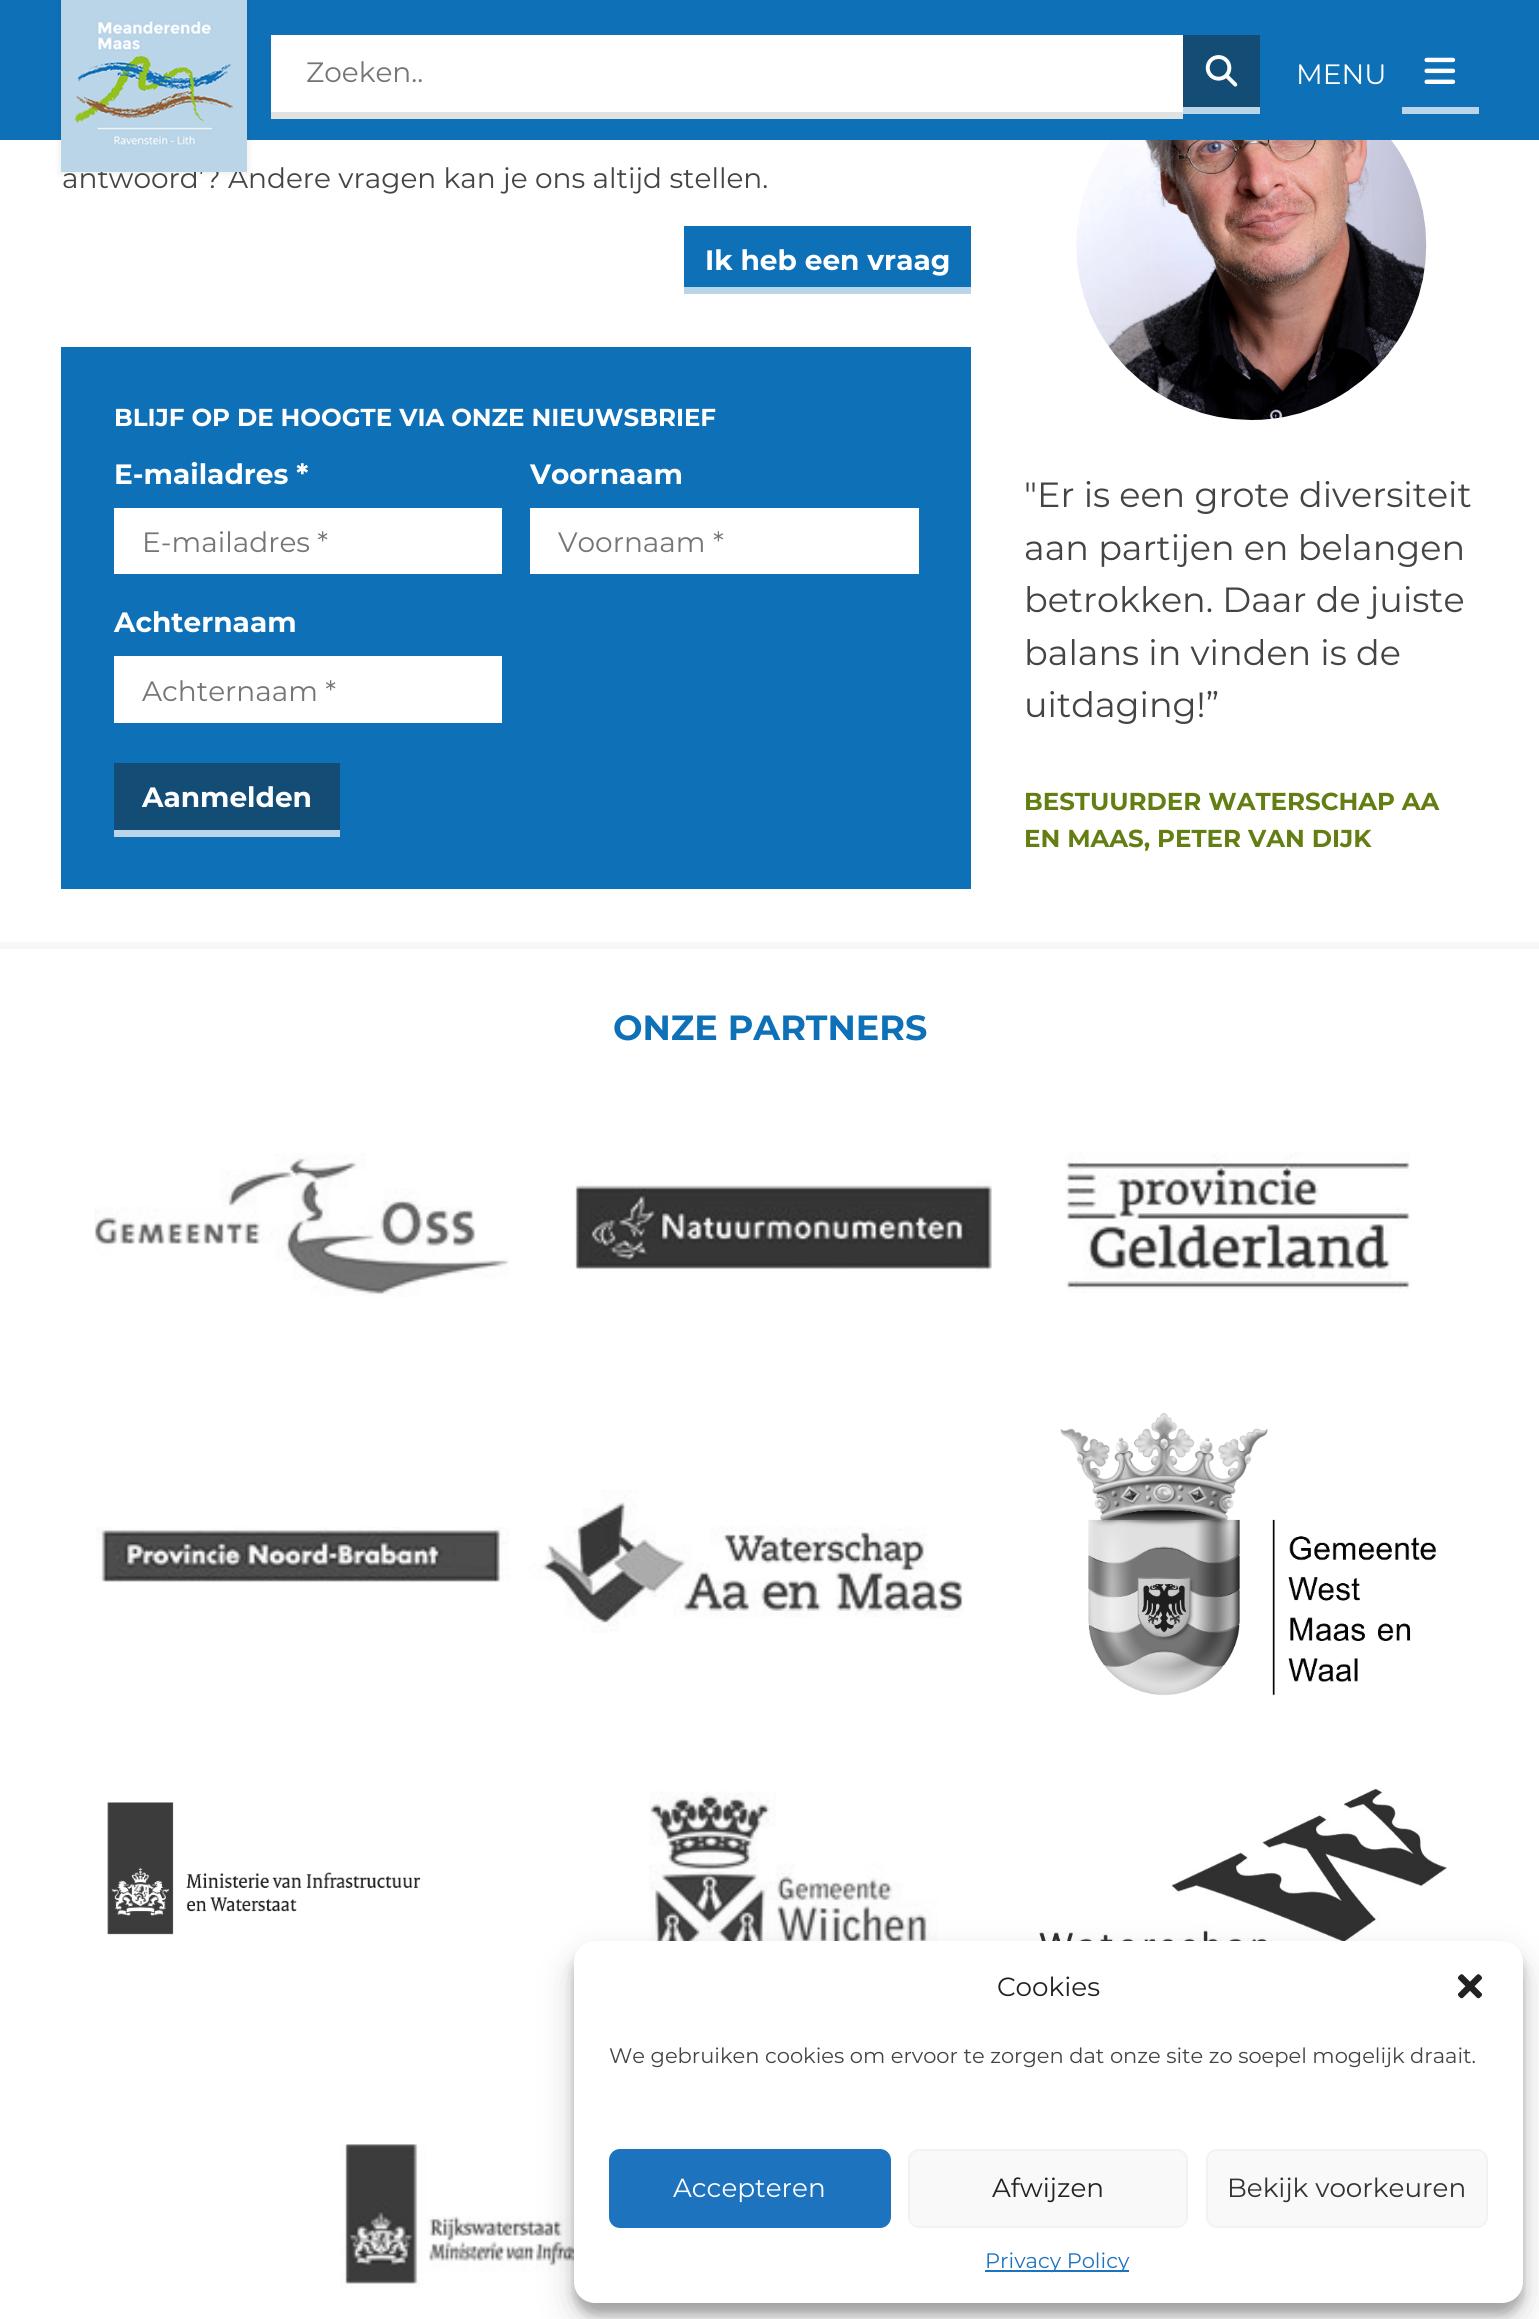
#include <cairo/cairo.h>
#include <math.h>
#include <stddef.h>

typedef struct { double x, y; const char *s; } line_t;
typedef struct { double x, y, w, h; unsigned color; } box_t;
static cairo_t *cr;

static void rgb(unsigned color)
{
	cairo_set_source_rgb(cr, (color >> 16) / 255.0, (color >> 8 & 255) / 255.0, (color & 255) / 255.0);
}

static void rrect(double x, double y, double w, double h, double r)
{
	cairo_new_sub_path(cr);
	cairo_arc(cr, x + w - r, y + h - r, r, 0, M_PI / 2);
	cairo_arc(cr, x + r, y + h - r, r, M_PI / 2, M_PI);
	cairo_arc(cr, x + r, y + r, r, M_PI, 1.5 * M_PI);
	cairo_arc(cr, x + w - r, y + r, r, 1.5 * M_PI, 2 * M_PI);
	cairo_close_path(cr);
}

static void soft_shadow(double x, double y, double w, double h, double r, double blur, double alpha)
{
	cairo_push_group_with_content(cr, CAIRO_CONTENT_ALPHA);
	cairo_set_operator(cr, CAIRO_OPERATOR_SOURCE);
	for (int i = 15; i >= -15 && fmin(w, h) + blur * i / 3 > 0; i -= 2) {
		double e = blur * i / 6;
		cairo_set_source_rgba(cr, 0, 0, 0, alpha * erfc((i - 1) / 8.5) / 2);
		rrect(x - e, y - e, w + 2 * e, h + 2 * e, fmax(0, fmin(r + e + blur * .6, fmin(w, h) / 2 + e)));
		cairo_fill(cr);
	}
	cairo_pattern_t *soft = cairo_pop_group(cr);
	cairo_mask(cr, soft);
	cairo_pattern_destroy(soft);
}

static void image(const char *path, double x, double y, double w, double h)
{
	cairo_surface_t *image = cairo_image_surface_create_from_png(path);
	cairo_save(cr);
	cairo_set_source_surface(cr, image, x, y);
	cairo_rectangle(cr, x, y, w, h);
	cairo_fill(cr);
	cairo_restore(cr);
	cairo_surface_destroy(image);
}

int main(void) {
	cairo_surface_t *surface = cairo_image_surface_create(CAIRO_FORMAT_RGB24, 1539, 2319);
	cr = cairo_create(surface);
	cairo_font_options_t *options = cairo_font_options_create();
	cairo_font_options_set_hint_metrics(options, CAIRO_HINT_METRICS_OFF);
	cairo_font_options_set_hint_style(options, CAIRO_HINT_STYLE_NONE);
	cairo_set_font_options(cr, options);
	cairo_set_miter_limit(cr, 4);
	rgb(0xffffff);
	cairo_paint(cr);
	rgb(0x0e71b8);
	cairo_rectangle(cr, 0, 0, 1539, 140);
	cairo_fill(cr);
	rgb(0x000000);
	soft_shadow(58, -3, 192, 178, 0, 2, 0.05);
	{
		static const box_t items[] = {
			{271, 35, 912, 77, 0xffffff},
			{271, 112, 912, 7, 0xe2e2e2},
			{1183, 35, 77, 72, 0x134d76},
			{1183, 107, 77, 7, 0xbad5e8},
		};
		for (size_t i = 0; i < sizeof items / sizeof *items; i++) {
			rgb(items[i].color);
			cairo_rectangle(cr, items[i].x, items[i].y, items[i].w, items[i].h);
			cairo_fill(cr);
		}
	}
	image("img/2.png", 1205, 55, 33, 32);
	cairo_rectangle(cr, 1402, 107, 77, 7);
	cairo_fill(cr);
	image("img/3.png", 1424, 57, 32, 27);
	{
		static const box_t items[] = {
			{684, 226, 287, 61, 0x0e71b8},
			{684, 287, 287, 7, 0xbad5e8},
			{61, 347, 910, 542, 0x0e71b8},
			{114, 508, 388, 66, 0xffffff},
			{530, 508, 389, 66, 0xffffff},
			{114, 656, 388, 67, 0xffffff},
			{114, 763, 226, 67, 0x134d76},
			{114, 830, 226, 7, 0xbad5e8},
		};
		for (size_t i = 0; i < sizeof items / sizeof *items; i++) {
			rgb(items[i].color);
			cairo_rectangle(cr, items[i].x, items[i].y, items[i].w, items[i].h);
			cairo_fill(cr);
		}
	}
	image("img/4.png", 1076, 140, 351, 280);
	rgb(0xf7f7f7);
	cairo_rectangle(cr, 0, 942, 1539, 7);
	cairo_fill(cr);
	image("img/5.png", 94, 1153, 415, 144);
	image("img/6.png", 575, 1180, 417, 93);
	image("img/7.png", 1065, 1152, 346, 141);
	image("img/8.png", 96, 1527, 414, 55);
	image("img/9.png", 529, 1490, 435, 143);
	image("img/10.png", 1060, 1413, 377, 283);
	image("img/11.png", 107, 1802, 314, 133);
	image("img/12.png", 649, 1791, 289, 150);
	image("img/13.png", 1039, 1788, 408, 153);
	image("img/14.png", 340, 2144, 236, 145);
	rgb(0x000000);
	soft_shadow(574, 1951, 949, 363, 21, 5, 0.23);
	soft_shadow(574, 1958, 949, 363, 21, 17.5, 0.19);
	rgb(0xffffff);
	rrect(574, 1941, 949, 362, 21);
	cairo_fill(cr);
	image("img/15.png", 1458, 1974, 24, 25);
	rgb(0x1e73be);
	rrect(610, 2150, 280, 77, 10);
	cairo_fill_preserve(cr);
	cairo_stroke(cr);
	rgb(0xf9f9f9);
	rrect(909, 2150, 278, 77, 10);
	cairo_fill_preserve(cr);
	rgb(0xf2f2f2);
	cairo_stroke(cr);
	rgb(0xf9f9f9);
	rrect(1207, 2150, 280, 77, 10);
	cairo_fill_preserve(cr);
	rgb(0xf2f2f2);
	cairo_stroke(cr);
	rgb(0x1e73be);
	cairo_rectangle(cr, 985, 2270, 144, 2);
	cairo_fill(cr);
	cairo_select_font_face(cr, "Montserrat", CAIRO_FONT_SLANT_NORMAL, CAIRO_FONT_WEIGHT_NORMAL);
	cairo_set_font_size(cr, 28);
	rgb(0x757575);
	cairo_move_to(cr, 306, 82);
	cairo_show_text(cr, "Zoeken..");
	rgb(0xffffff);
	cairo_move_to(cr, 1296, 84);
	cairo_show_text(cr, "MENU");
	rgb(0x444444);
	cairo_move_to(cr, 62, 188);
	cairo_show_text(cr, "antwoord’? Andere vragen kan je ons altijd stellen.");
	rgb(0xbad5e8);
	cairo_rectangle(cr, 61, 0, 186, 172);
	cairo_fill(cr);
	image("img/1.png", 75, 20, 158, 126);
	cairo_select_font_face(cr, "Montserrat", CAIRO_FONT_SLANT_NORMAL, CAIRO_FONT_WEIGHT_BOLD);
	rgb(0xffffff);
	cairo_move_to(cr, 705, 270);
	cairo_show_text(cr, "Ik heb een vraag");
	cairo_set_font_size(cr, 24.5);
	cairo_move_to(cr, 114, 426);
	cairo_show_text(cr, "BLIJF OP DE HOOGTE VIA ONZE NIEUWSBRIEF");
	cairo_set_font_size(cr, 28);
	cairo_move_to(cr, 114, 484);
	cairo_show_text(cr, "E-mailadres *");
	cairo_select_font_face(cr, "Montserrat", CAIRO_FONT_SLANT_NORMAL, CAIRO_FONT_WEIGHT_NORMAL);
	rgb(0x757575);
	cairo_move_to(cr, 142, 552);
	cairo_show_text(cr, "E-mailadres *");
	cairo_select_font_face(cr, "Montserrat", CAIRO_FONT_SLANT_NORMAL, CAIRO_FONT_WEIGHT_BOLD);
	rgb(0xffffff);
	cairo_move_to(cr, 530, 484);
	cairo_show_text(cr, "Voornaam");
	cairo_select_font_face(cr, "Montserrat", CAIRO_FONT_SLANT_NORMAL, CAIRO_FONT_WEIGHT_NORMAL);
	rgb(0x757575);
	cairo_move_to(cr, 558, 552);
	cairo_show_text(cr, "Voornaam *");
	cairo_select_font_face(cr, "Montserrat", CAIRO_FONT_SLANT_NORMAL, CAIRO_FONT_WEIGHT_BOLD);
	rgb(0xffffff);
	cairo_move_to(cr, 114, 632);
	cairo_show_text(cr, "Achternaam");
	cairo_select_font_face(cr, "Montserrat", CAIRO_FONT_SLANT_NORMAL, CAIRO_FONT_WEIGHT_NORMAL);
	rgb(0x757575);
	cairo_move_to(cr, 142, 701);
	cairo_show_text(cr, "Achternaam *");
	cairo_select_font_face(cr, "Montserrat", CAIRO_FONT_SLANT_NORMAL, CAIRO_FONT_WEIGHT_BOLD);
	rgb(0xffffff);
	cairo_move_to(cr, 142, 807);
	cairo_show_text(cr, "Aanmelden");
	cairo_select_font_face(cr, "Montserrat", CAIRO_FONT_SLANT_NORMAL, CAIRO_FONT_WEIGHT_NORMAL);
	cairo_set_font_size(cr, 35);
	rgb(0x444444);
	{
		static const line_t items[] = {
			{1024, 507, "\"Er is een grote diversiteit"},
			{1024, 560, "aan partijen en belangen"},
			{1024, 612, "betrokken. Daar de juiste"},
			{1024, 665, "balans in vinden is de"},
			{1024, 717, "uitdaging!”"},
		};
		for (size_t i = 0; i < sizeof items / sizeof *items; i++) {
			cairo_move_to(cr, items[i].x, items[i].y);
			cairo_show_text(cr, items[i].s);
		}
	}
	cairo_select_font_face(cr, "Montserrat", CAIRO_FONT_SLANT_NORMAL, CAIRO_FONT_WEIGHT_BOLD);
	cairo_set_font_size(cr, 24.5);
	rgb(0x637f14);
	cairo_move_to(cr, 1024, 810);
	cairo_show_text(cr, "BESTUURDER WATERSCHAP AA");
	cairo_move_to(cr, 1024, 847);
	cairo_show_text(cr, "EN MAAS, PETER VAN DIJK");
	cairo_set_font_size(cr, 35);
	rgb(0x0e71b8);
	cairo_move_to(cr, 613, 1040);
	cairo_show_text(cr, "ONZE PARTNERS");
	cairo_select_font_face(cr, "Montserrat", CAIRO_FONT_SLANT_NORMAL, CAIRO_FONT_WEIGHT_NORMAL);
	cairo_set_font_size(cr, 26.25);
	rgb(0x222222);
	cairo_move_to(cr, 997, 1996);
	cairo_show_text(cr, "Cookies");
	cairo_set_font_size(cr, 21);
	rgb(0x444444);
	cairo_move_to(cr, 609, 2063);
	cairo_show_text(cr, "We gebruiken cookies om ervoor te zorgen dat onze site zo soepel mogelijk draait.");
	cairo_set_font_size(cr, 26.25);
	rgb(0xffffff);
	cairo_move_to(cr, 673, 2197);
	cairo_show_text(cr, "Accepteren");
	rgb(0x222222);
	cairo_move_to(cr, 992, 2197);
	cairo_show_text(cr, "Afwijzen");
	rgb(0x333333);
	cairo_move_to(cr, 1227, 2197);
	cairo_show_text(cr, "Bekijk voorkeuren");
	cairo_set_font_size(cr, 21);
	rgb(0x1e73be);
	cairo_move_to(cr, 985, 2268);
	cairo_show_text(cr, "Privacy Policy");
	cairo_surface_write_to_png(surface, "page.png");
	cairo_font_options_destroy(options);
	cairo_destroy(cr);
	cairo_surface_destroy(surface);
	return 0;
}
